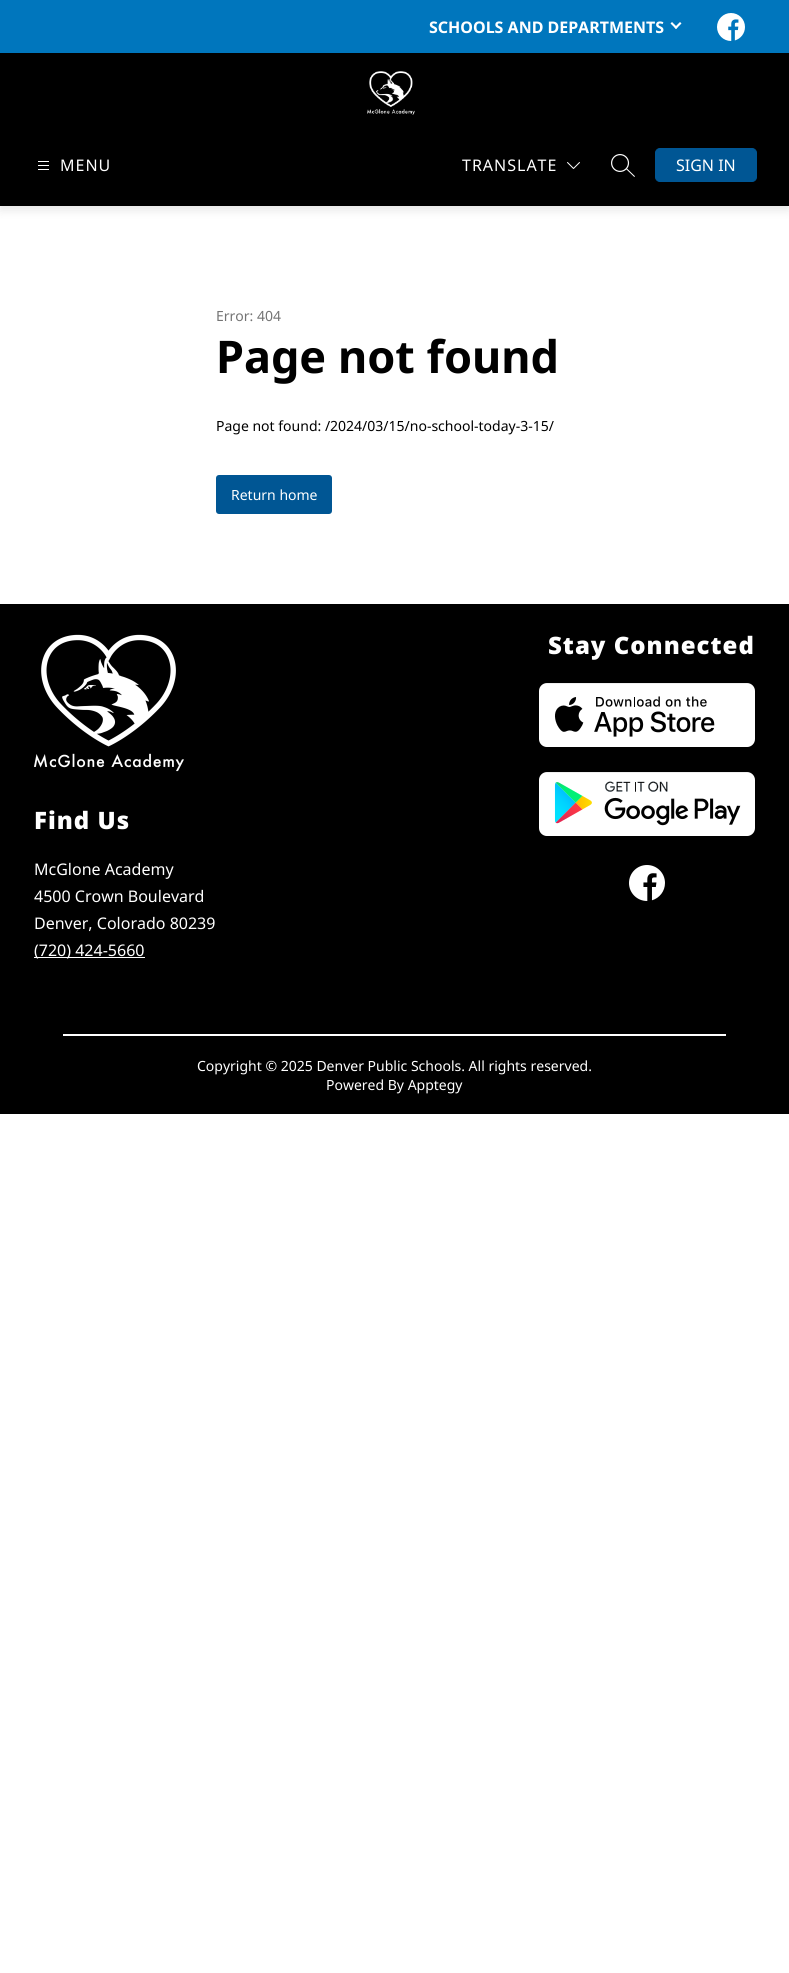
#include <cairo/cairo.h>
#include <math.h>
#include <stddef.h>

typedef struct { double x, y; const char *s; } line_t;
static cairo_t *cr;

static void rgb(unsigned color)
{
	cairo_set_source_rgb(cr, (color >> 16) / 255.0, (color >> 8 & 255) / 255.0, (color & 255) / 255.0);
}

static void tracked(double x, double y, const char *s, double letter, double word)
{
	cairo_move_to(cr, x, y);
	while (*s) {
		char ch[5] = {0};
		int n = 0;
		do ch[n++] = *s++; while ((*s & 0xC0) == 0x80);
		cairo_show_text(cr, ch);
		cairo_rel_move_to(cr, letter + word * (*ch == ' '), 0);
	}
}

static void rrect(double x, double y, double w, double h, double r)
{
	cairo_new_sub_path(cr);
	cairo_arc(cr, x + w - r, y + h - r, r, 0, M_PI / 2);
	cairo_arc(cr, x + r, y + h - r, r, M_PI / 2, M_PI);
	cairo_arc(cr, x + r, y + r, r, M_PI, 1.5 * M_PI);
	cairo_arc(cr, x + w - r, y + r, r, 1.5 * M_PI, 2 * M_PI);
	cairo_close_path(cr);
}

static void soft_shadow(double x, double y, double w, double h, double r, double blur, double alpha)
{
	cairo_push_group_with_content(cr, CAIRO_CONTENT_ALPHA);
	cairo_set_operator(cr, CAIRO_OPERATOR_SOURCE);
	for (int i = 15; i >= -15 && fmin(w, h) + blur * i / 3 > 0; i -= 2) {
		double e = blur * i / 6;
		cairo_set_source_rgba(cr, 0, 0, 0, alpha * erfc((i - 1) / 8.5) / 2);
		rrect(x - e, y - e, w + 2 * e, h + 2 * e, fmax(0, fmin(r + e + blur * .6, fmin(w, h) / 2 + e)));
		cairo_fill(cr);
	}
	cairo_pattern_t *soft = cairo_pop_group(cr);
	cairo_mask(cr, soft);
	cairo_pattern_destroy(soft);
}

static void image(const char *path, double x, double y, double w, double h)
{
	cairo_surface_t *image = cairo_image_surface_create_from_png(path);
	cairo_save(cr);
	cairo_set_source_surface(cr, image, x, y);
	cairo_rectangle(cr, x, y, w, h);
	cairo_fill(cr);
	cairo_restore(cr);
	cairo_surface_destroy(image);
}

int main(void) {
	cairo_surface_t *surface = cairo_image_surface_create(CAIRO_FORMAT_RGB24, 789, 1973);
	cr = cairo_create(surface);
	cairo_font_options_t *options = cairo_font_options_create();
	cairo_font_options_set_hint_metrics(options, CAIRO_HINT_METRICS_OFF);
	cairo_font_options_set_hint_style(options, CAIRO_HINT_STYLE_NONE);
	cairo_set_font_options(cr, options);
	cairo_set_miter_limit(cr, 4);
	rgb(0xffffff);
	cairo_paint(cr);
	rgb(0x000000);
	soft_shadow(0, 57, 789, 153, 0, 5, 0.1);
	rgb(0x0076bd);
	cairo_rectangle(cr, 0, 0, 789, 53);
	cairo_fill(cr);
	rgb(0xffffff);
	cairo_new_path(cr);
	cairo_move_to(cr, 680, 22);
	cairo_line_to(cr, 681.5, 23.5);
	cairo_line_to(cr, 676, 29);
	cairo_line_to(cr, 674.5, 27.5);
	cairo_close_path(cr);
	cairo_fill(cr);
	cairo_new_path(cr);
	cairo_move_to(cr, 672, 22);
	cairo_line_to(cr, 677.5, 27.5);
	cairo_line_to(cr, 676, 29);
	cairo_line_to(cr, 670.5, 23.5);
	cairo_close_path(cr);
	cairo_fill(cr);
	image("img/1.png", 717, 13, 28, 28);
	rgb(0x000000);
	cairo_rectangle(cr, 0, 53, 789, 153);
	cairo_fill(cr);
	image("img/2.png", 367, 71, 48, 44);
	image("img/3.png", 38, 161, 11, 9);
	image("img/4.png", 567, 162, 13, 7);
	image("img/5.png", 611, 154, 24, 23);
	rgb(0x005694);
	rrect(655.5, 148.5, 101, 33, 4.5);
	cairo_fill_preserve(cr);
	cairo_set_line_width(cr, 1);
	cairo_stroke(cr);
	rrect(216, 475, 116, 39, 3);
	cairo_fill(cr);
	rgb(0x000000);
	cairo_rectangle(cr, 0, 604, 789, 510);
	cairo_fill(cr);
	image("img/6.png", 539, 683, 216, 64);
	image("img/7.png", 539, 772, 216, 64);
	image("img/8.png", 629, 865, 36, 36);
	image("img/9.png", 34, 634, 150, 138);
	rgb(0xffffff);
	cairo_rectangle(cr, 34, 957, 111, 1);
	cairo_fill(cr);
	cairo_rectangle(cr, 63, 1034, 663, 2);
	cairo_fill(cr);
	cairo_select_font_face(cr, "Noto Sans", CAIRO_FONT_SLANT_NORMAL, CAIRO_FONT_WEIGHT_BOLD);
	cairo_set_font_size(cr, 16);
	cairo_move_to(cr, 429, 33);
	cairo_show_text(cr, "SCHOOLS AND DEPARTMENTS");
	cairo_select_font_face(cr, "Noto Sans", CAIRO_FONT_SLANT_NORMAL, CAIRO_FONT_WEIGHT_NORMAL);
	tracked(60, 171, "MENU", 1, 0);
	tracked(462, 171, "TRANSLATE", 1, 0);
	cairo_move_to(cr, 676, 171);
	cairo_show_text(cr, "SIGN IN");
	cairo_set_font_size(cr, 14);
	rgb(0x747474);
	cairo_move_to(cr, 216, 321);
	cairo_show_text(cr, "Error: 404");
	cairo_select_font_face(cr, "Noto Sans", CAIRO_FONT_SLANT_NORMAL, CAIRO_FONT_WEIGHT_BOLD);
	cairo_set_font_size(cr, 45);
	rgb(0x000000);
	cairo_move_to(cr, 216, 373);
	cairo_show_text(cr, "Page not found");
	cairo_select_font_face(cr, "Noto Sans", CAIRO_FONT_SLANT_NORMAL, CAIRO_FONT_WEIGHT_NORMAL);
	cairo_set_font_size(cr, 14);
	cairo_move_to(cr, 216, 431);
	cairo_show_text(cr, "Page not found: /2024/03/15/no-school-today-3-15/");
	rgb(0xffffff);
	cairo_move_to(cr, 231, 500);
	cairo_show_text(cr, "Return home");
	cairo_select_font_face(cr, "Noto Sans Black", CAIRO_FONT_SLANT_NORMAL, CAIRO_FONT_WEIGHT_NORMAL);
	cairo_set_font_size(cr, 24);
	tracked(548, 654, "Stay Connected", 1, 0);
	tracked(34, 829, "Find Us", 1, 0);
	cairo_select_font_face(cr, "Noto Sans", CAIRO_FONT_SLANT_NORMAL, CAIRO_FONT_WEIGHT_NORMAL);
	cairo_set_font_size(cr, 16);
	{
		static const line_t items[] = {
			{34, 875, "McGlone Academy"},
			{34, 902, "4500 Crown Boulevard"},
			{34, 929, "Denver, Colorado 80239"},
			{34, 956, "(720) 424-5660"},
		};
		for (size_t i = 0; i < sizeof items / sizeof *items; i++) {
			cairo_move_to(cr, items[i].x, items[i].y);
			cairo_show_text(cr, items[i].s);
		}
	}
	cairo_set_font_size(cr, 14);
	cairo_move_to(cr, 197, 1071);
	cairo_show_text(cr, "Copyright © 2025 Denver Public Schools. All rights reserved.");
	cairo_move_to(cr, 326, 1090);
	cairo_show_text(cr, "Powered By Apptegy");
	cairo_surface_write_to_png(surface, "page.png");
	cairo_font_options_destroy(options);
	cairo_destroy(cr);
	cairo_surface_destroy(surface);
	return 0;
}
